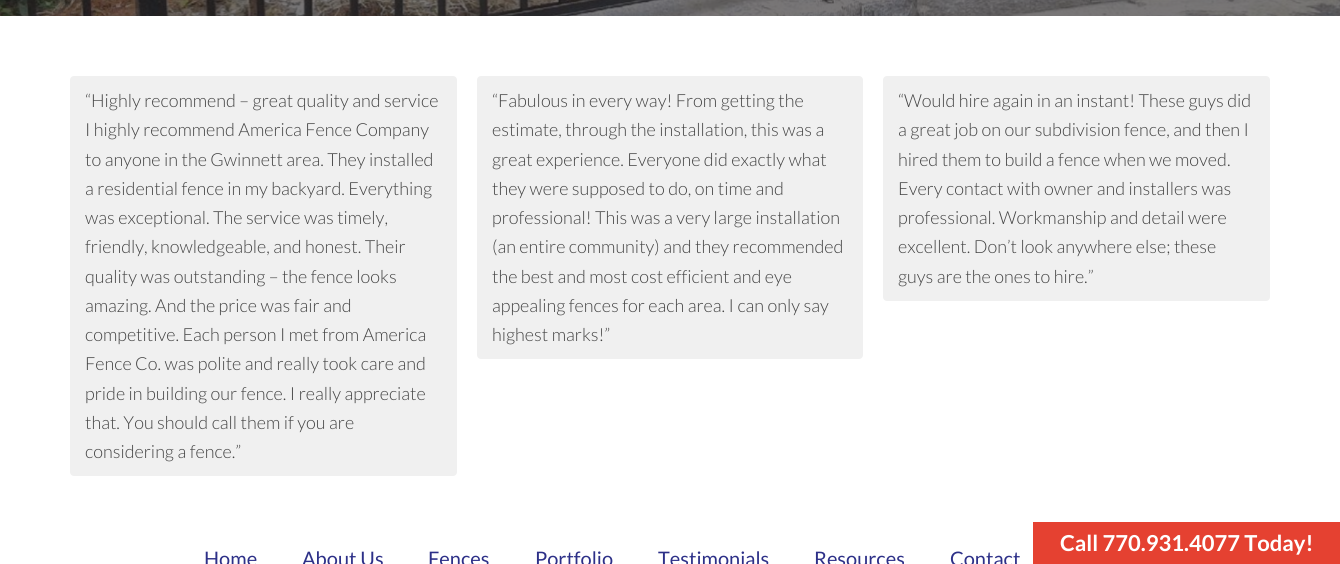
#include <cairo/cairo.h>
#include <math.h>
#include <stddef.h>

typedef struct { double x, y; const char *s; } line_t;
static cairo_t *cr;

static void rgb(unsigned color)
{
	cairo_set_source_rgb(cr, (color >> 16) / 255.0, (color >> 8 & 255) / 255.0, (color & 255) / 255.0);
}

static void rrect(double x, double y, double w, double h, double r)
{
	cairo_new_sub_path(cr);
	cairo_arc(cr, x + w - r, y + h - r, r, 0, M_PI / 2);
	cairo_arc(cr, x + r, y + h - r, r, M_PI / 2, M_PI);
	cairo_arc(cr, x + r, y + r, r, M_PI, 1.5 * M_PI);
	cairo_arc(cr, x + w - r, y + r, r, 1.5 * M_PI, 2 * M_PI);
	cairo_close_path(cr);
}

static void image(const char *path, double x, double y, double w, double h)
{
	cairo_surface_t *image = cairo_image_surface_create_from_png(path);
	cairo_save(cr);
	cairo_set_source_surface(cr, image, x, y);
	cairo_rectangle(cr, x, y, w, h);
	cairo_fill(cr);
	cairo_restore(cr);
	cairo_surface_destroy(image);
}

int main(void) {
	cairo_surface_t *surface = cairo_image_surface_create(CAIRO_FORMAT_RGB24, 1340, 564);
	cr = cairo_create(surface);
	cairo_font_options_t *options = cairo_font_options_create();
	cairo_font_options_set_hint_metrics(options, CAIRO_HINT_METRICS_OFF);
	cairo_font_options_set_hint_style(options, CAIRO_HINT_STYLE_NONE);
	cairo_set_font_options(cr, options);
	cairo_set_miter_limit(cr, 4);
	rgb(0xffffff);
	cairo_paint(cr);
	image("img/1.png", 0, 0, 1340, 16);
	rgb(0xf0f0f0);
	rrect(70, 76, 387, 400, 4);
	cairo_fill(cr);
	rrect(477, 76, 386, 283, 4);
	cairo_fill(cr);
	rrect(883, 76, 387, 225, 4);
	cairo_fill(cr);
	rgb(0xe54131);
	cairo_rectangle(cr, 1033, 522, 307, 42);
	cairo_fill(cr);
	cairo_select_font_face(cr, "Lato Light", CAIRO_FONT_SLANT_NORMAL, CAIRO_FONT_WEIGHT_NORMAL);
	cairo_set_font_size(cr, 18);
	rgb(0x444444);
	{
		static const line_t items[] = {
			{85, 107, "“Highly recommend – great quality and service"},
			{85, 136, "I highly recommend America Fence Company"},
			{85, 166, "to anyone in the Gwinnett area. They installed"},
			{85, 195, "a residential fence in my backyard. Everything"},
			{85, 224, "was exceptional. The service was timely,"},
			{85, 253, "friendly, knowledgeable, and honest. Their"},
			{85, 283, "quality was outstanding – the fence looks"},
			{85, 312, "amazing. And the price was fair and"},
			{85, 341, "competitive. Each person I met from America"},
			{85, 370, "Fence Co. was polite and really took care and"},
			{85, 400, "pride in building our fence. I really appreciate"},
			{85, 429, "that. You should call them if you are"},
			{85, 458, "considering a fence.”"},
			{492, 107, "“Fabulous in every way! From getting the"},
			{492, 136, "estimate, through the installation, this was a"},
			{492, 166, "great experience. Everyone did exactly what"},
			{492, 195, "they were supposed to do, on time and"},
			{492, 224, "professional! This was a very large installation"},
			{492, 253, "(an entire community) and they recommended"},
			{492, 283, "the best and most cost efficient and eye"},
			{492, 312, "appealing fences for each area. I can only say"},
			{492, 341, "highest marks!”"},
			{898, 107, "“Would hire again in an instant! These guys did"},
			{898, 136, "a great job on our subdivision fence, and then I"},
			{898, 166, "hired them to build a fence when we moved."},
			{898, 195, "Every contact with owner and installers was"},
			{898, 224, "professional. Workmanship and detail were"},
			{898, 253, "excellent. Don’t look anywhere else; these"},
			{898, 283, "guys are the ones to hire.”"},
		};
		for (size_t i = 0; i < sizeof items / sizeof *items; i++) {
			cairo_move_to(cr, items[i].x, items[i].y);
			cairo_show_text(cr, items[i].s);
		}
	}
	cairo_select_font_face(cr, "Lato", CAIRO_FONT_SLANT_NORMAL, CAIRO_FONT_WEIGHT_BOLD);
	cairo_set_font_size(cr, 22);
	rgb(0xffffff);
	cairo_move_to(cr, 1060, 551);
	cairo_show_text(cr, "Call 770.931.4077 Today!");
	cairo_select_font_face(cr, "Lato", CAIRO_FONT_SLANT_NORMAL, CAIRO_FONT_WEIGHT_NORMAL);
	cairo_set_font_size(cr, 20);
	rgb(0x2d3088);
	{
		static const line_t items[] = {
			{204, 566, "Home"},
			{302, 566, "About Us"},
			{428, 566, "Fences"},
			{535, 566, "Portfolio"},
			{658, 566, "Testimonials"},
			{814, 566, "Resources"},
			{950, 566, "Contact"},
		};
		for (size_t i = 0; i < sizeof items / sizeof *items; i++) {
			cairo_move_to(cr, items[i].x, items[i].y);
			cairo_show_text(cr, items[i].s);
		}
	}
	cairo_surface_write_to_png(surface, "page.png");
	cairo_font_options_destroy(options);
	cairo_destroy(cr);
	cairo_surface_destroy(surface);
	return 0;
}
